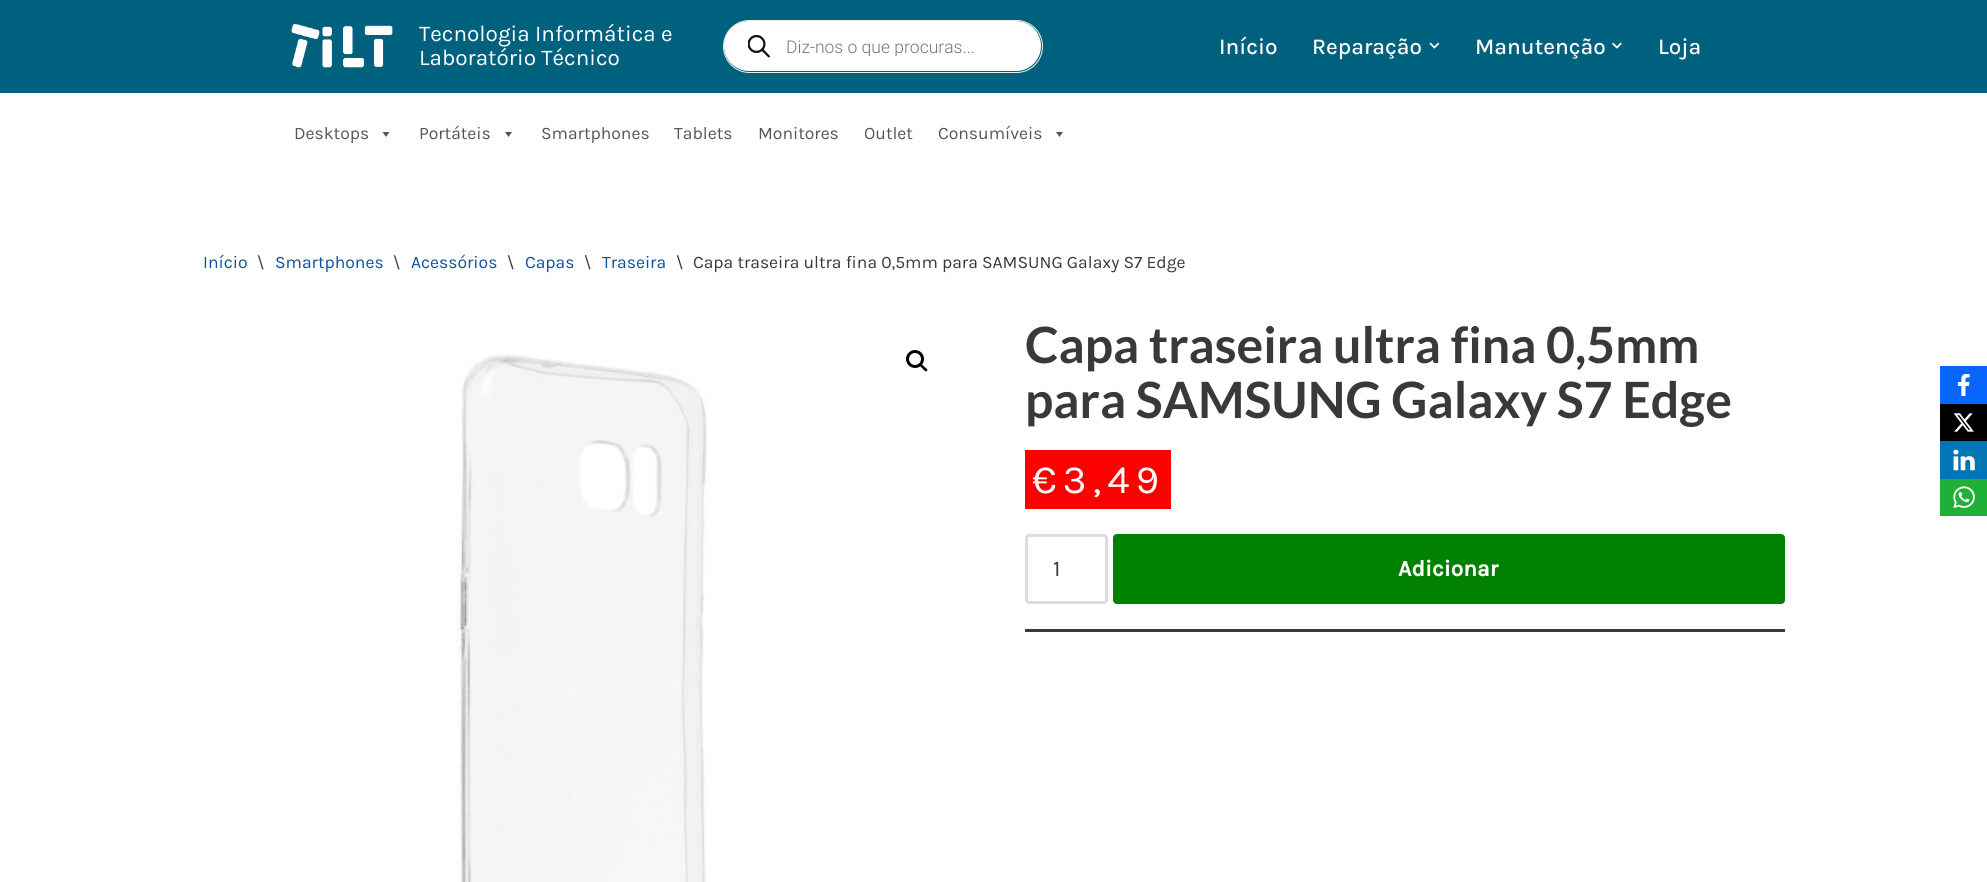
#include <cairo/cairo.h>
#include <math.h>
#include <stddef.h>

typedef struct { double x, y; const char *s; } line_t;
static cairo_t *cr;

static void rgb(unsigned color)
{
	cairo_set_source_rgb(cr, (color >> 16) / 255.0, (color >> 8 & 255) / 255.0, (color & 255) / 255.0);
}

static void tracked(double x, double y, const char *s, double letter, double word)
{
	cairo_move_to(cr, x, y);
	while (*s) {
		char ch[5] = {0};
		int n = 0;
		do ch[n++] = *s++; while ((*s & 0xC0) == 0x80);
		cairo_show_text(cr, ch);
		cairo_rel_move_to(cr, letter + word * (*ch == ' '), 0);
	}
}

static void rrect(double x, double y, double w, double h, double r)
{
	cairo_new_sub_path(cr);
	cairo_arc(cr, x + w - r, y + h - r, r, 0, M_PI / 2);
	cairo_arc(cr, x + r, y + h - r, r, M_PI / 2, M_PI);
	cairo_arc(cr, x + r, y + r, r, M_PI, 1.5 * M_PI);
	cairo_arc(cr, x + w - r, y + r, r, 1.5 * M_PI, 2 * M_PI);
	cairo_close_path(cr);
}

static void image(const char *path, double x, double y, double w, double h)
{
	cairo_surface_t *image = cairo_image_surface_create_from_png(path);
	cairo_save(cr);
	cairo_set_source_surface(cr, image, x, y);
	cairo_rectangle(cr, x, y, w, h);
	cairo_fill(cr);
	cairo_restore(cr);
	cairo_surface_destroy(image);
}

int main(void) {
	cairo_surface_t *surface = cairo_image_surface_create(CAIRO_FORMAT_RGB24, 1987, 882);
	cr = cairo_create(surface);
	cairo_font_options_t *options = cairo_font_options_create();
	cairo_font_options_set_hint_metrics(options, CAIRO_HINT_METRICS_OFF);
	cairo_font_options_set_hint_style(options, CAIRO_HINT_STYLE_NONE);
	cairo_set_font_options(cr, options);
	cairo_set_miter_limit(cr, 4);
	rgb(0xffffff);
	cairo_paint(cr);
	rgb(0x00617f);
	cairo_rectangle(cr, 0, 0, 1987, 93);
	cairo_fill(cr);
	image("img/1.png", 291, 23, 102, 45);
	rrect(723.5, 20.5, 319, 52, 26);
	rgb(0xeeeeee);
	cairo_set_line_width(cr, 1);
	cairo_stroke(cr);
	rgb(0xffffff);
	rrect(724, 21, 317, 50, 25);
	cairo_fill(cr);
	image("img/2.png", 748, 35, 22, 23);
	image("img/3.png", 1429, 42, 11, 7);
	image("img/4.png", 1612, 42, 10, 7);
	rgb(0x555555);
	cairo_new_path(cr);
	cairo_move_to(cr, 389.5, 132);
	cairo_line_to(cr, 386, 137);
	cairo_line_to(cr, 382.5, 132);
	cairo_close_path(cr);
	cairo_fill(cr);
	cairo_new_path(cr);
	cairo_move_to(cr, 512, 132);
	cairo_line_to(cr, 508.5, 137);
	cairo_line_to(cr, 505, 132);
	cairo_close_path(cr);
	cairo_fill(cr);
	cairo_new_path(cr);
	cairo_move_to(cr, 1063, 132);
	cairo_line_to(cr, 1059.5, 137);
	cairo_line_to(cr, 1056, 132);
	cairo_close_path(cr);
	cairo_fill(cr);
	image("img/5.png", 456, 354, 253, 528);
	cairo_arc(cr, 915, 359, 7.5, 0, 2 * M_PI);
	rgb(0x000000);
	cairo_set_line_width(cr, 3);
	cairo_stroke(cr);
	cairo_new_path(cr);
	cairo_move_to(cr, 920, 364);
	cairo_curve_to(cr, 921, 362.5, 923.5, 366, 924, 366.5);
	cairo_curve_to(cr, 925, 367.5, 928.5, 369.5, 927, 371);
	cairo_curve_to(cr, 925.5, 372.5, 923, 369, 922.5, 368.5);
	cairo_curve_to(cr, 921.5, 367.5, 918.5, 365.5, 920, 364);
	cairo_close_path(cr);
	cairo_fill(cr);
	rgb(0xff0000);
	cairo_rectangle(cr, 1025, 450, 146, 59);
	cairo_fill(cr);
	rgb(0x393939);
	cairo_rectangle(cr, 1025, 629, 760, 3);
	cairo_fill(cr);
	rrect(1026.5, 535.5, 80, 67, 2.5);
	rgb(0xdddddd);
	cairo_stroke(cr);
	rgb(0x008000);
	rrect(1113, 534, 672, 70, 4);
	cairo_fill(cr);
	rgb(0x0866ff);
	cairo_rectangle(cr, 1940, 366, 47, 38);
	cairo_fill(cr);
	image("img/6.png", 1957, 374, 13, 22);
	rgb(0x000000);
	cairo_rectangle(cr, 1940, 404, 47, 37);
	cairo_fill(cr);
	image("img/7.png", 1953, 413, 21, 19);
	rgb(0x0077b5);
	cairo_rectangle(cr, 1940, 441, 47, 38);
	cairo_fill(cr);
	image("img/8.png", 1953, 449, 22, 22);
	rgb(0x20b038);
	cairo_rectangle(cr, 1940, 479, 47, 37);
	cairo_fill(cr);
	image("img/9.png", 1953, 486, 22, 22);
	cairo_select_font_face(cr, "Karla", CAIRO_FONT_SLANT_NORMAL, CAIRO_FONT_WEIGHT_NORMAL);
	cairo_set_font_size(cr, 22.5);
	rgb(0xffffff);
	cairo_move_to(cr, 419, 41);
	cairo_show_text(cr, "Tecnologia Informática e");
	cairo_move_to(cr, 419, 65);
	cairo_show_text(cr, "Laboratório Técnico");
	cairo_save(cr);
	cairo_rectangle(cr, 786, 36, 223, 20);
	cairo_clip(cr);
	cairo_select_font_face(cr, "Roboto Light", CAIRO_FONT_SLANT_NORMAL, CAIRO_FONT_WEIGHT_NORMAL);
	cairo_set_font_size(cr, 17.5);
	rgb(0x777777);
	cairo_move_to(cr, 786, 53);
	cairo_show_text(cr, "Diz-nos o que procuras...");
	cairo_restore(cr);
	cairo_select_font_face(cr, "Karla Medium", CAIRO_FONT_SLANT_NORMAL, CAIRO_FONT_WEIGHT_NORMAL);
	{
		static const line_t items[] = {
			{1219, 54, "Início"},
			{1312, 54, "Reparação"},
			{1475, 54, "Manutenção"},
			{1658, 54, "Loja"},
		};
		for (size_t i = 0; i < sizeof items / sizeof *items; i++) {
			cairo_move_to(cr, items[i].x, items[i].y);
			cairo_show_text(cr, items[i].s);
		}
	}
	cairo_select_font_face(cr, "Karla", CAIRO_FONT_SLANT_NORMAL, CAIRO_FONT_WEIGHT_NORMAL);
	cairo_set_font_size(cr, 17.5);
	rgb(0x555555);
	{
		static const line_t items[] = {
			{294, 139, "Desktops"},
			{419, 139, "Portáteis"},
			{541, 139, "Smartphones"},
			{674, 139, "Tablets"},
			{758, 139, "Monitores"},
			{864, 139, "Outlet"},
			{938, 139, "Consumíveis"},
		};
		for (size_t i = 0; i < sizeof items / sizeof *items; i++) {
			cairo_move_to(cr, items[i].x, items[i].y);
			cairo_show_text(cr, items[i].s);
		}
	}
	rgb(0x0e509a);
	cairo_move_to(cr, 203, 268);
	cairo_show_text(cr, "Início");
	rgb(0x393939);
	cairo_move_to(cr, 257, 268);
	cairo_show_text(cr, "\\");
	rgb(0x0e509a);
	cairo_move_to(cr, 275, 268);
	cairo_show_text(cr, "Smartphones");
	rgb(0x393939);
	cairo_move_to(cr, 393, 268);
	cairo_show_text(cr, "\\");
	rgb(0x0e509a);
	cairo_move_to(cr, 411, 268);
	cairo_show_text(cr, "Acessórios");
	rgb(0x393939);
	cairo_move_to(cr, 507, 268);
	cairo_show_text(cr, "\\");
	rgb(0x0e509a);
	cairo_move_to(cr, 525, 268);
	cairo_show_text(cr, "Capas");
	rgb(0x393939);
	cairo_move_to(cr, 584, 268);
	cairo_show_text(cr, "\\");
	rgb(0x0e509a);
	cairo_move_to(cr, 602, 268);
	cairo_show_text(cr, "Traseira");
	rgb(0x393939);
	cairo_move_to(cr, 676, 268);
	cairo_show_text(cr, "\\");
	cairo_move_to(cr, 693, 268);
	cairo_show_text(cr, "Capa traseira ultra fina 0,5mm para SAMSUNG Galaxy S7 Edge");
	cairo_select_font_face(cr, "Lato", CAIRO_FONT_SLANT_NORMAL, CAIRO_FONT_WEIGHT_BOLD);
	cairo_set_font_size(cr, 50);
	cairo_move_to(cr, 1025, 363);
	cairo_show_text(cr, "Capa traseira ultra fina 0,5mm");
	cairo_move_to(cr, 1025, 418);
	cairo_show_text(cr, "para SAMSUNG Galaxy S7 Edge");
	cairo_select_font_face(cr, "Karla", CAIRO_FONT_SLANT_NORMAL, CAIRO_FONT_WEIGHT_NORMAL);
	cairo_set_font_size(cr, 40);
	rgb(0xffffff);
	tracked(1032, 493, "€3,49", 6.25, 0);
	cairo_set_font_size(cr, 22.5);
	rgb(0x393939);
	cairo_move_to(cr, 1053, 576);
	cairo_show_text(cr, "1");
	cairo_select_font_face(cr, "Karla", CAIRO_FONT_SLANT_NORMAL, CAIRO_FONT_WEIGHT_BOLD);
	rgb(0xffffff);
	cairo_move_to(cr, 1398, 576);
	cairo_show_text(cr, "Adicionar");
	cairo_surface_write_to_png(surface, "page.png");
	cairo_font_options_destroy(options);
	cairo_destroy(cr);
	cairo_surface_destroy(surface);
	return 0;
}
